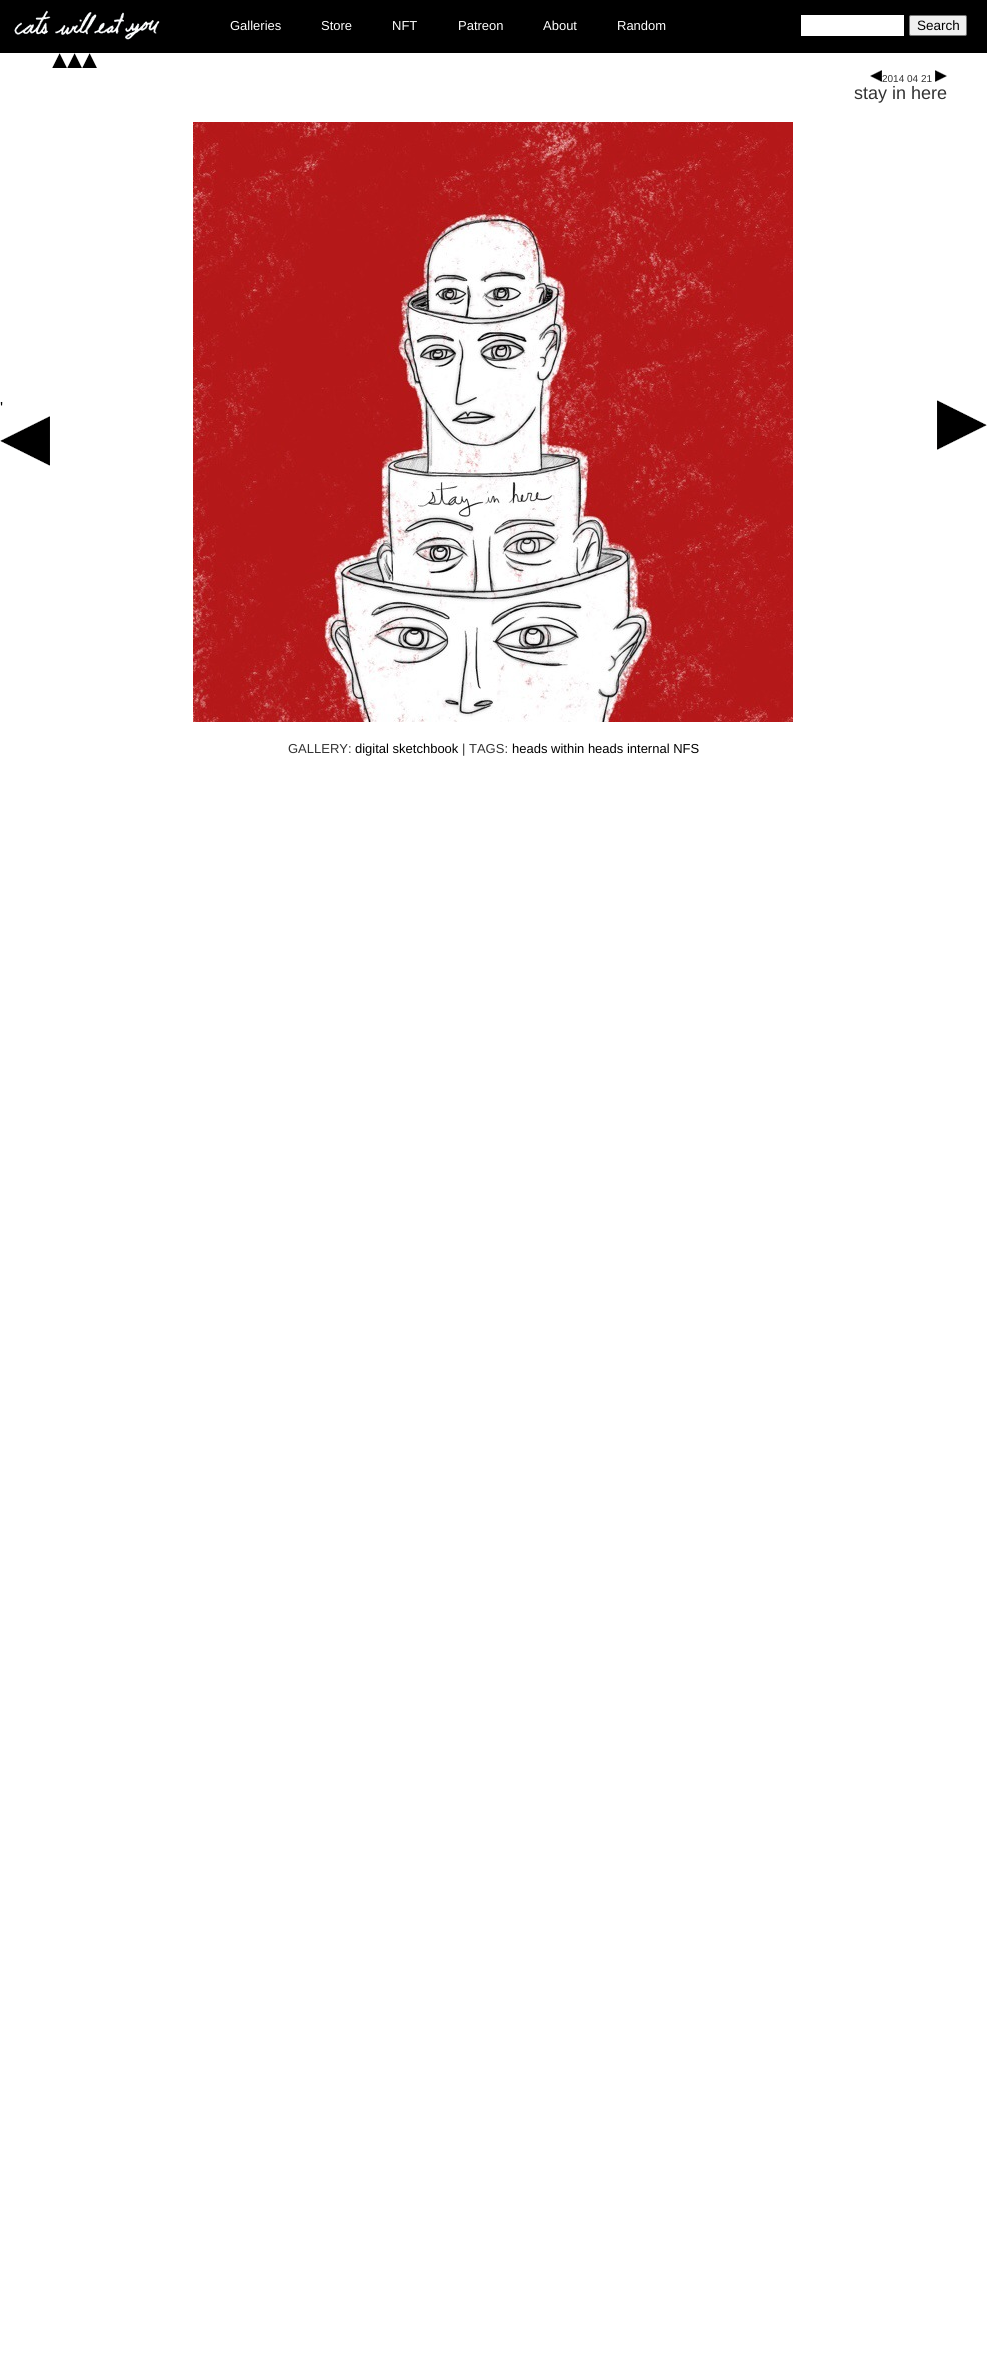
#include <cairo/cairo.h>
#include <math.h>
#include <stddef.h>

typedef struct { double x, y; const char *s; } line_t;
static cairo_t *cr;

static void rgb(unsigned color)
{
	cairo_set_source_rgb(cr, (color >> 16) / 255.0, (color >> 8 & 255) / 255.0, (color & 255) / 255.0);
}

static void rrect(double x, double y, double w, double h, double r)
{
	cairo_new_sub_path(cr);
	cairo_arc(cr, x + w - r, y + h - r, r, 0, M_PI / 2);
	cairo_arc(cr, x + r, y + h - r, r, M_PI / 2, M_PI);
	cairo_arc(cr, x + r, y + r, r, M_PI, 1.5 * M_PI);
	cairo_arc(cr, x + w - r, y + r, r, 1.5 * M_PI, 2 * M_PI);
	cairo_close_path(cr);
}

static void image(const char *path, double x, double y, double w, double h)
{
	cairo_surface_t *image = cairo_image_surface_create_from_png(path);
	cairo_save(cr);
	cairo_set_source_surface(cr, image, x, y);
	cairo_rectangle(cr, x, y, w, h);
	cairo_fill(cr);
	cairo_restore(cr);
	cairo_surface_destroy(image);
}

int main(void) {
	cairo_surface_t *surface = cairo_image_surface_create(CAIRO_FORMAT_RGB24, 987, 2369);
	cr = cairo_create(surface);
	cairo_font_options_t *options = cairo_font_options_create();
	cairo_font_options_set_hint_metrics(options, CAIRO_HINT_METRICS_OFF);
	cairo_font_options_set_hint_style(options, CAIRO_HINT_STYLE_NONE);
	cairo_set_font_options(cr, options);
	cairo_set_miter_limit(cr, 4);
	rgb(0xffffff);
	cairo_paint(cr);
	rgb(0x000000);
	cairo_rectangle(cr, 0, 0, 987, 53);
	cairo_fill(cr);
	image("img/1.png", 14, 10, 146, 30);
	rgb(0xffffff);
	cairo_rectangle(cr, 801, 15, 103, 21);
	cairo_fill(cr);
	rgb(0xefefef);
	rrect(909.5, 15.5, 57, 20, 1.5);
	cairo_fill_preserve(cr);
	rgb(0x767676);
	cairo_set_line_width(cr, 1);
	cairo_stroke(cr);
	image("img/2.png", 52, 53, 45, 15);
	image("img/3.png", 0, 416, 50, 50);
	image("img/4.png", 870, 70, 12, 12);
	image("img/5.png", 935, 70, 12, 12);
	image("img/6.png", 193, 122, 600, 600);
	image("img/7.png", 937, 400, 50, 50);
	cairo_select_font_face(cr, "Liberation Sans", CAIRO_FONT_SLANT_NORMAL, CAIRO_FONT_WEIGHT_NORMAL);
	cairo_set_font_size(cr, 13);
	rgb(0xffffff);
	{
		static const line_t items[] = {
			{230, 30, "Galleries"},
			{321, 30, "Store"},
			{392, 30, "NFT"},
			{458, 30, "Patreon"},
			{543, 30, "About"},
			{617, 30, "Random"},
		};
		for (size_t i = 0; i < sizeof items / sizeof *items; i++) {
			cairo_move_to(cr, items[i].x, items[i].y);
			cairo_show_text(cr, items[i].s);
		}
	}
	cairo_set_font_size(cr, 13.5);
	rgb(0x000000);
	cairo_move_to(cr, 917, 30);
	cairo_show_text(cr, "Search");
	cairo_set_font_size(cr, 16);
	cairo_move_to(cr, 0, 413);
	cairo_show_text(cr, "'");
	cairo_set_font_size(cr, 10);
	rgb(0x333333);
	cairo_move_to(cr, 882, 82);
	cairo_show_text(cr, "2014 04 21");
	cairo_set_font_size(cr, 18);
	cairo_move_to(cr, 854, 99);
	cairo_show_text(cr, "stay in here");
	cairo_set_font_size(cr, 13);
	cairo_move_to(cr, 288, 753);
	cairo_show_text(cr, "GALLERY:");
	rgb(0x000000);
	cairo_move_to(cr, 355, 753);
	cairo_show_text(cr, "digital sketchbook");
	rgb(0x333333);
	cairo_move_to(cr, 462, 753);
	cairo_show_text(cr, "| TAGS:");
	rgb(0x000000);
	cairo_move_to(cr, 512, 753);
	cairo_show_text(cr, "heads within heads internal NFS");
	cairo_surface_write_to_png(surface, "page.png");
	cairo_font_options_destroy(options);
	cairo_destroy(cr);
	cairo_surface_destroy(surface);
	return 0;
}
